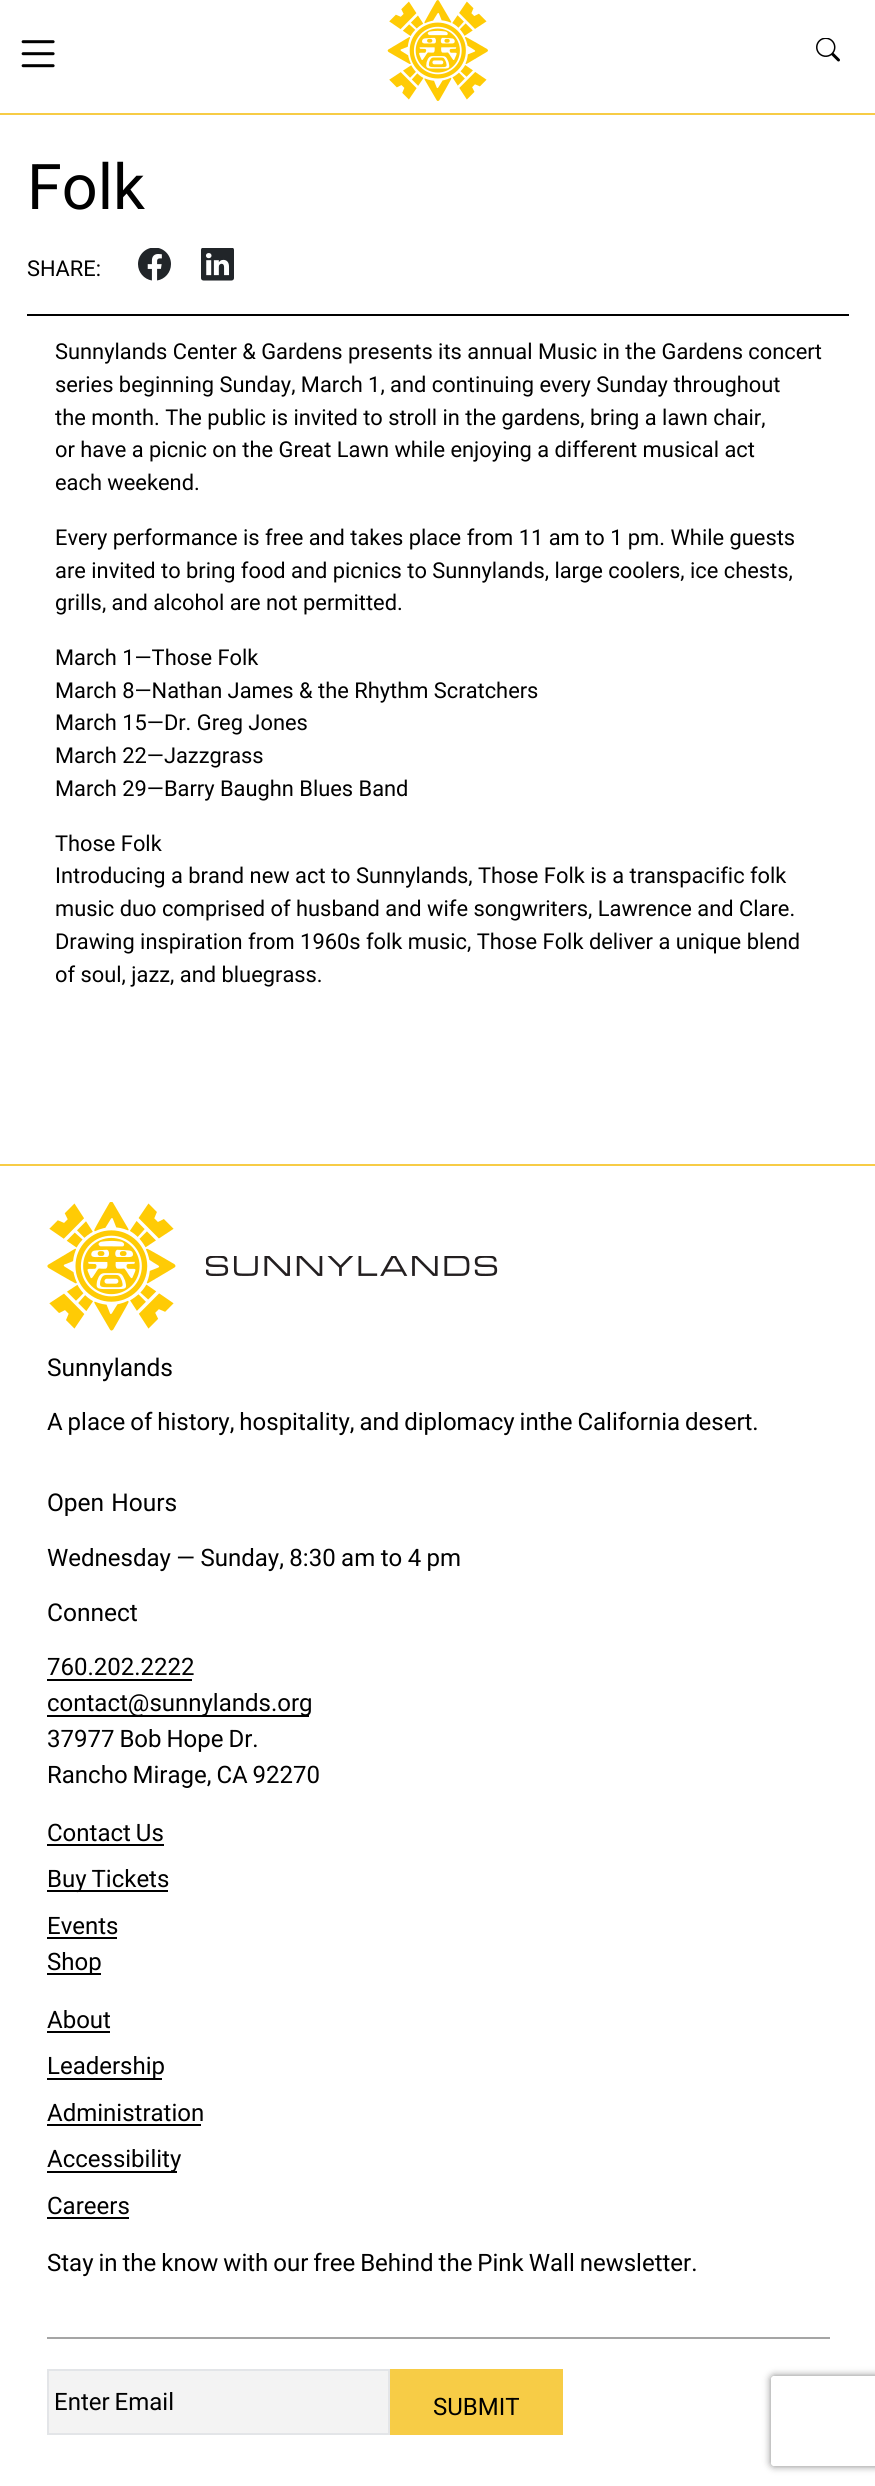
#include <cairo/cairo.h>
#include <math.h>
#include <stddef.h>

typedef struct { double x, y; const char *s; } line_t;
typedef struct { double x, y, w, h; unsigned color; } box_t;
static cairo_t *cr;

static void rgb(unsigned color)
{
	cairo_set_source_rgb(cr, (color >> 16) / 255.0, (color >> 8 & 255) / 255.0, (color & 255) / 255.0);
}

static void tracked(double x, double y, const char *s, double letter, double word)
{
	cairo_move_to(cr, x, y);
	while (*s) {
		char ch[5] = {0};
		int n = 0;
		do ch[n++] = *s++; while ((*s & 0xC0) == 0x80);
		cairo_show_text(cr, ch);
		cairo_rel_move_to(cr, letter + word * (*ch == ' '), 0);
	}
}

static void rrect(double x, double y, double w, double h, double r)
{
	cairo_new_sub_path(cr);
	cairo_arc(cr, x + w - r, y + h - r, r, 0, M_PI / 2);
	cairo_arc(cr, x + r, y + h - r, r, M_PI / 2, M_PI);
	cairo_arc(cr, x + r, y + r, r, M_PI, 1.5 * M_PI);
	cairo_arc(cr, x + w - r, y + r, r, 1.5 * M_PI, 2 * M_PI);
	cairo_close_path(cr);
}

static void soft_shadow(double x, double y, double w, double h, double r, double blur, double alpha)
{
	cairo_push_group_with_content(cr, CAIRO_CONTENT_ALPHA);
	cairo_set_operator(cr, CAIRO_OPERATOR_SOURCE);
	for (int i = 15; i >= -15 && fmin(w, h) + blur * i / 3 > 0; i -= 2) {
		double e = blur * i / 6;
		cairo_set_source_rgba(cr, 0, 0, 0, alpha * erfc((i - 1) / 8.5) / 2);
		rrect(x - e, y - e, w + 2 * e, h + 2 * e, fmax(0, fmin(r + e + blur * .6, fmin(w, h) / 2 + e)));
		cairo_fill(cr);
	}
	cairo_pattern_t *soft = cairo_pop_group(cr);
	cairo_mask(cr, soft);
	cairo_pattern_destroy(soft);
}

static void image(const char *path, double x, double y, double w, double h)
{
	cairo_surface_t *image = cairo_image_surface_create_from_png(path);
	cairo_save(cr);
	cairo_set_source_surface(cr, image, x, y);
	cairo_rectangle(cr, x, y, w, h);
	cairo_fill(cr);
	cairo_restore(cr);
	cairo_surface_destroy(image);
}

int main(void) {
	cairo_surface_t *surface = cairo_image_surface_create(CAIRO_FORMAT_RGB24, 875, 2486);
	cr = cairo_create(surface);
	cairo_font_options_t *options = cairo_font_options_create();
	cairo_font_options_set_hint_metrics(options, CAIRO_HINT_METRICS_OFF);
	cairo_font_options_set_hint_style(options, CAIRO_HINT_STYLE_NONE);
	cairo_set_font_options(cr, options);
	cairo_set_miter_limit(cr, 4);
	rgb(0xffffff);
	cairo_paint(cr);
	rgb(0xf7cc46);
	cairo_rectangle(cr, 0, 113, 875, 2);
	cairo_fill(cr);
	image("img/1.png", 21, 40, 34, 28);
	image("img/2.png", 387, 0, 101, 101);
	image("img/3.png", 816, 38, 24, 24);
	image("img/4.png", 138, 248, 33, 33);
	image("img/5.png", 201, 248, 33, 33);
	rgb(0x000000);
	cairo_rectangle(cr, 27, 314, 822, 2);
	cairo_fill(cr);
	rgb(0xf7cc46);
	cairo_rectangle(cr, 0, 1164, 875, 2);
	cairo_fill(cr);
	image("img/6.png", 47, 1202, 129, 129);
	image("img/7.png", 206, 1256, 292, 20);
	{
		static const box_t items[] = {
			{47, 1679, 145, 2, 0x000000},
			{47, 1715, 262, 2, 0x000000},
			{47, 1844, 117, 2, 0x000000},
			{47, 1890, 121, 2, 0x000000},
			{47, 1937, 70, 2, 0x000000},
			{47, 1973, 54, 2, 0x000000},
			{47, 2031, 63, 2, 0x000000},
			{47, 2078, 115, 2, 0x000000},
			{47, 2124, 154, 2, 0x000000},
			{47, 2171, 130, 2, 0x000000},
			{47, 2217, 82, 2, 0x000000},
			{47, 2337, 783, 2, 0xa5a5a5},
		};
		for (size_t i = 0; i < sizeof items / sizeof *items; i++) {
			rgb(items[i].color);
			cairo_rectangle(cr, items[i].x, items[i].y, items[i].w, items[i].h);
			cairo_fill(cr);
		}
	}
	rgb(0xf3f3f3);
	cairo_rectangle(cr, 48, 2370, 341, 64);
	cairo_fill_preserve(cr);
	rgb(0xe3e5e8);
	cairo_stroke(cr);
	rgb(0xf7cc46);
	cairo_rectangle(cr, 390, 2369, 173, 66);
	cairo_fill(cr);
	cairo_save(cr);
	cairo_set_fill_rule(cr, CAIRO_FILL_RULE_EVEN_ODD);
	cairo_new_path(cr);
	cairo_move_to(cr, 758, 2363);
	cairo_line_to(cr, 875, 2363);
	cairo_line_to(cr, 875, 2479);
	cairo_line_to(cr, 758, 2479);
	cairo_close_path(cr);
	cairo_move_to(cr, 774, 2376);
	cairo_line_to(cr, 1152, 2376);
	cairo_curve_to(cr, 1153.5, 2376, 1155, 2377.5, 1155, 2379);
	cairo_line_to(cr, 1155, 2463);
	cairo_curve_to(cr, 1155, 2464.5, 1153.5, 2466, 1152, 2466);
	cairo_line_to(cr, 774, 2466);
	cairo_curve_to(cr, 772.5, 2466, 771, 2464.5, 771, 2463);
	cairo_line_to(cr, 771, 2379);
	cairo_curve_to(cr, 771, 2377.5, 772.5, 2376, 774, 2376);
	cairo_close_path(cr);
	cairo_clip(cr);
	rgb(0x808080);
	soft_shadow(771, 2376, 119, 90, 3, 4, 1);
	cairo_restore(cr);
	cairo_select_font_face(cr, "Roboto", CAIRO_FONT_SLANT_NORMAL, CAIRO_FONT_WEIGHT_NORMAL);
	cairo_set_font_size(cr, 63);
	rgb(0x000000);
	cairo_move_to(cr, 27, 209);
	cairo_show_text(cr, "Folk");
	cairo_set_font_size(cr, 21.85);
	{
		static const line_t items[] = {
			{27, 276, "SHARE:"},
			{55, 359, "Sunnylands Center & Gardens presents its annual Music in the Gardens concert"},
			{55, 392, "series beginning Sunday, March 1, and continuing every Sunday throughout"},
			{55, 425, "the month. The public is invited to stroll in the gardens, bring a lawn chair,"},
			{55, 457, "or have a picnic on the Great Lawn while enjoying a different musical act"},
			{55, 490, "each weekend."},
			{55, 545, "Every performance is free and takes place from 11 am to 1 pm. While guests"},
			{55, 578, "are invited to bring food and picnics to Sunnylands, large coolers, ice chests,"},
			{55, 610, "grills, and alcohol are not permitted."},
			{55, 665, "March 1—Those Folk"},
			{55, 698, "March 8—Nathan James & the Rhythm Scratchers"},
			{55, 730, "March 15—Dr. Greg Jones"},
			{55, 763, "March 22—Jazzgrass"},
			{55, 796, "March 29—Barry Baughn Blues Band"},
			{55, 851, "Those Folk"},
			{55, 883, "Introducing a brand new act to Sunnylands, Those Folk is a transpacific folk"},
			{55, 916, "music duo comprised of husband and wife songwriters, Lawrence and Clare."},
			{55, 949, "Drawing inspiration from 1960s folk music, Those Folk deliver a unique blend"},
			{55, 982, "of soul, jazz, and bluegrass."},
		};
		for (size_t i = 0; i < sizeof items / sizeof *items; i++) {
			cairo_move_to(cr, items[i].x, items[i].y);
			cairo_show_text(cr, items[i].s);
		}
	}
	cairo_set_font_size(cr, 24.5);
	cairo_move_to(cr, 47, 1376);
	cairo_show_text(cr, "Sunnylands");
	cairo_set_font_size(cr, 24);
	tracked(47, 1430, "A place of history, hospitality, and diplomacy inthe California desert.", 0, -1);
	cairo_set_font_size(cr, 24.5);
	tracked(47, 1511, "Open Hours", 0, 1);
	cairo_set_font_size(cr, 24);
	tracked(47, 1566, "Wednesday — Sunday, 8:30 am to 4 pm", 0, -0.5);
	cairo_set_font_size(cr, 24.5);
	cairo_move_to(cr, 47, 1621);
	cairo_show_text(cr, "Connect");
	cairo_set_font_size(cr, 24);
	cairo_move_to(cr, 47, 1675);
	cairo_show_text(cr, "760.202.2222");
	cairo_move_to(cr, 47, 1711);
	cairo_show_text(cr, "contact@sunnylands.org");
	{
		static const line_t items[] = {
			{47, 1747, "37977 Bob Hope Dr."},
			{47, 1783, "Rancho Mirage, CA 92270"},
			{47, 1841, "Contact Us"},
			{47, 1887, "Buy Tickets"},
		};
		for (size_t i = 0; i < sizeof items / sizeof *items; i++) {
			tracked(items[i].x, items[i].y, items[i].s, 0, -1);
		}
	}
	{
		static const line_t items[] = {
			{47, 1934, "Events"},
			{47, 1970, "Shop"},
			{47, 2028, "About"},
			{47, 2074, "Leadership"},
			{47, 2121, "Administration"},
			{47, 2167, "Accessibility"},
			{47, 2214, "Careers"},
		};
		for (size_t i = 0; i < sizeof items / sizeof *items; i++) {
			cairo_move_to(cr, items[i].x, items[i].y);
			cairo_show_text(cr, items[i].s);
		}
	}
	tracked(47, 2271, "Stay in the know with our free Behind the Pink Wall newsletter.", 0, -1);
	tracked(54, 2410, "Enter Email", 0, -1);
	cairo_move_to(cr, 433, 2415);
	cairo_show_text(cr, "SUBMIT");
	cairo_surface_write_to_png(surface, "page.png");
	cairo_font_options_destroy(options);
	cairo_destroy(cr);
	cairo_surface_destroy(surface);
	return 0;
}
